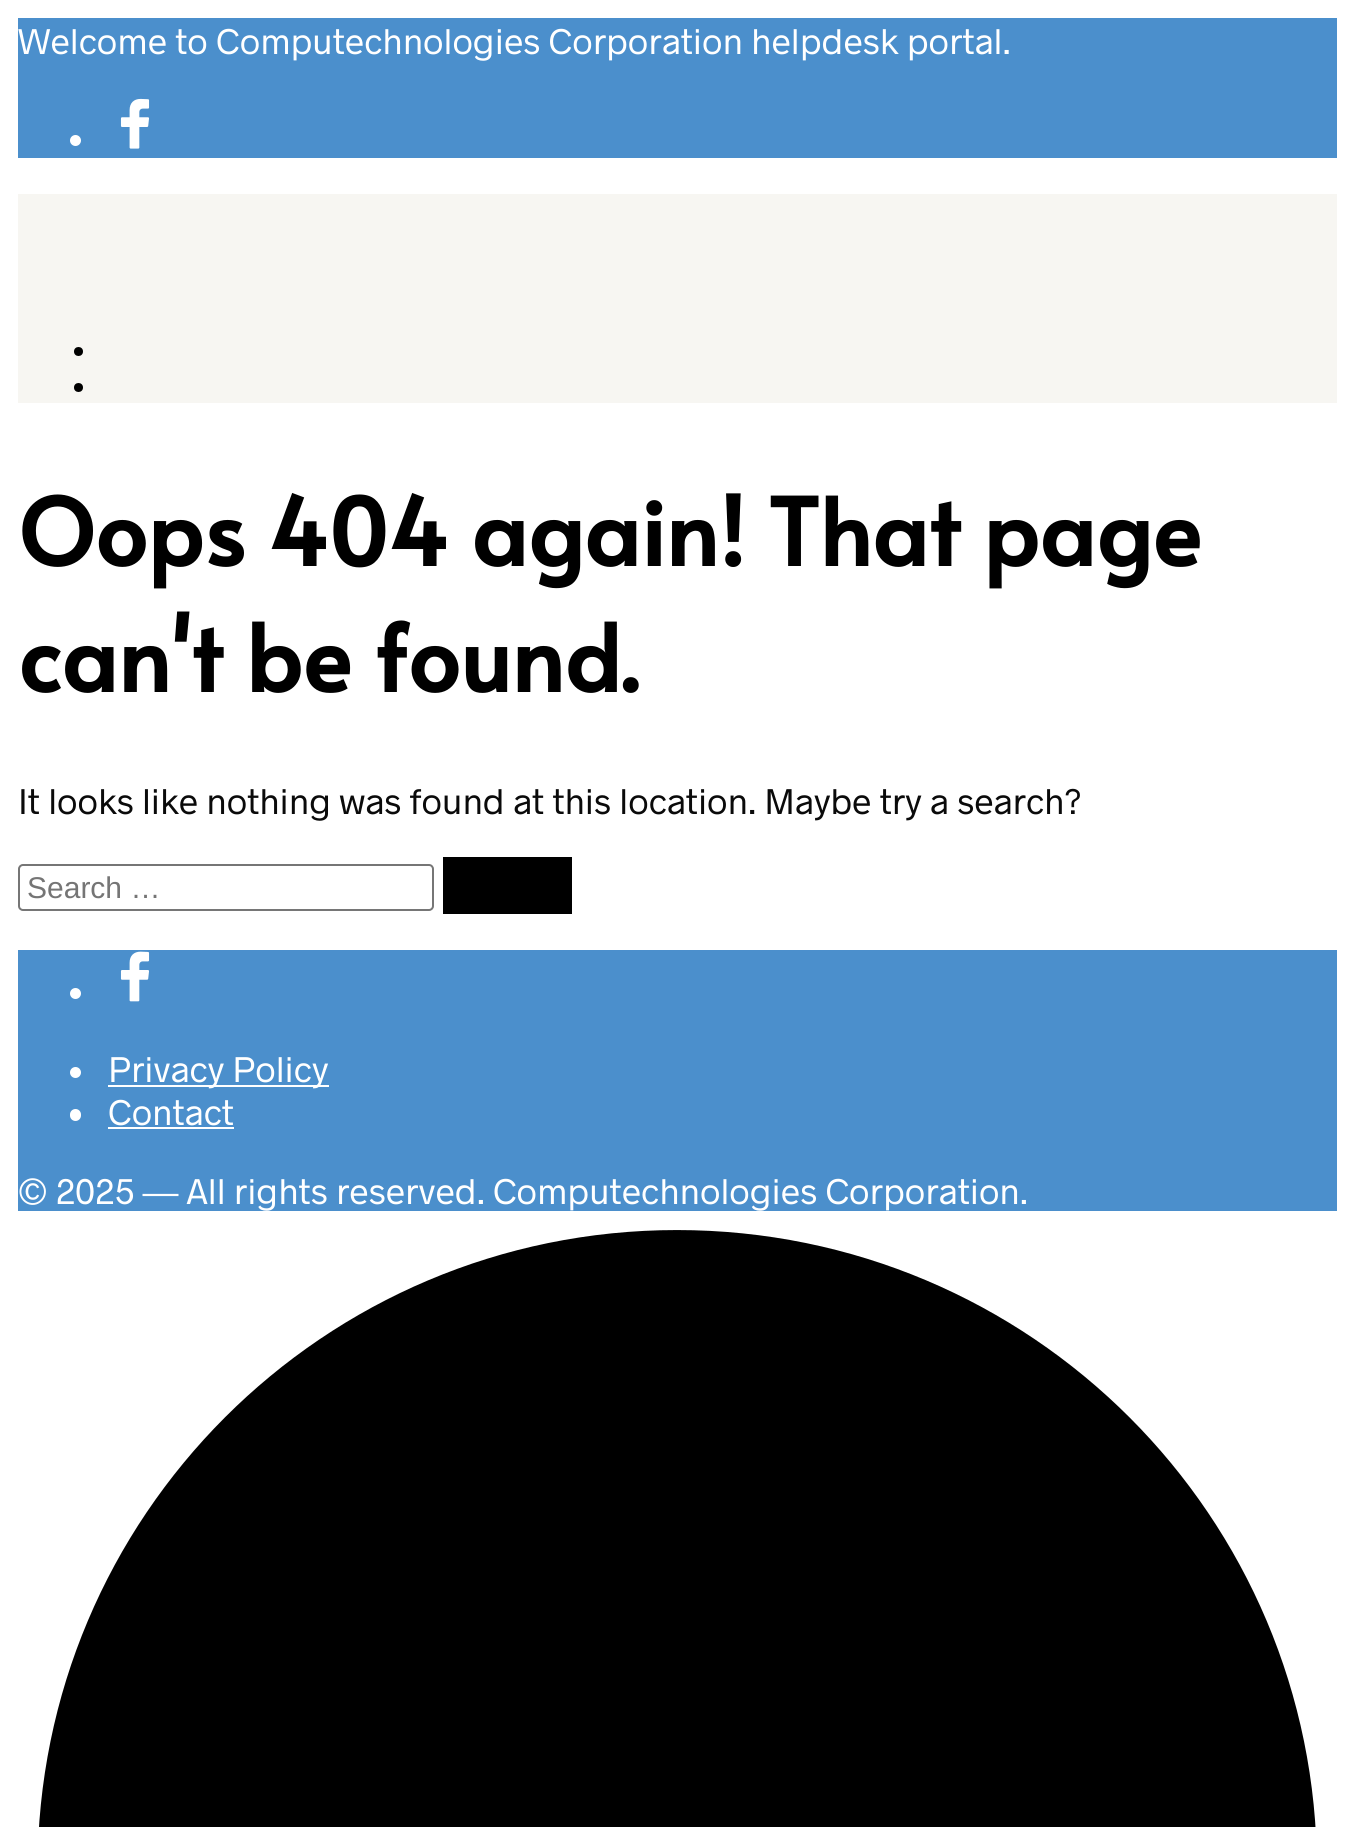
#include <cairo/cairo.h>
#include <math.h>
#include <stddef.h>

typedef struct { double x, y; const char *s; } line_t;
static cairo_t *cr;

static void rgb(unsigned color)
{
	cairo_set_source_rgb(cr, (color >> 16) / 255.0, (color >> 8 & 255) / 255.0, (color & 255) / 255.0);
}

static void rrect(double x, double y, double w, double h, double r)
{
	cairo_new_sub_path(cr);
	cairo_arc(cr, x + w - r, y + h - r, r, 0, M_PI / 2);
	cairo_arc(cr, x + r, y + h - r, r, M_PI / 2, M_PI);
	cairo_arc(cr, x + r, y + r, r, M_PI, 1.5 * M_PI);
	cairo_arc(cr, x + w - r, y + r, r, 1.5 * M_PI, 2 * M_PI);
	cairo_close_path(cr);
}

static void image(const char *path, double x, double y, double w, double h)
{
	cairo_surface_t *image = cairo_image_surface_create_from_png(path);
	cairo_save(cr);
	cairo_set_source_surface(cr, image, x, y);
	cairo_rectangle(cr, x, y, w, h);
	cairo_fill(cr);
	cairo_restore(cr);
	cairo_surface_destroy(image);
}

int main(void) {
	cairo_surface_t *surface = cairo_image_surface_create(CAIRO_FORMAT_RGB24, 1353, 1827);
	cr = cairo_create(surface);
	cairo_font_options_t *options = cairo_font_options_create();
	cairo_font_options_set_hint_metrics(options, CAIRO_HINT_METRICS_OFF);
	cairo_font_options_set_hint_style(options, CAIRO_HINT_STYLE_NONE);
	cairo_set_font_options(cr, options);
	cairo_set_miter_limit(cr, 4);
	rgb(0xffffff);
	cairo_paint(cr);
	rgb(0x4b8fcc);
	cairo_rectangle(cr, 18, 18, 1319, 140);
	cairo_fill(cr);
	rgb(0xffffff);
	cairo_arc(cr, 75.5, 140.5, 5.5, 0, 2 * M_PI);
	cairo_fill(cr);
	image("img/1.png", 120, 98, 30, 51);
	rgb(0xf7f6f2);
	cairo_rectangle(cr, 18, 194, 1319, 209);
	cairo_fill(cr);
	rgb(0x000000);
	cairo_arc(cr, 78.5, 351.5, 4.5, 0, 2 * M_PI);
	cairo_fill(cr);
	cairo_arc(cr, 78.5, 387.5, 4.5, 0, 2 * M_PI);
	cairo_fill(cr);
	rrect(19, 865, 414, 45, 4);
	rgb(0x767676);
	cairo_stroke(cr);
	rgb(0x000000);
	cairo_rectangle(cr, 443, 857, 129, 57);
	cairo_fill(cr);
	rgb(0x4b8fcc);
	cairo_rectangle(cr, 18, 950, 1319, 261);
	cairo_fill(cr);
	rgb(0xffffff);
	cairo_arc(cr, 75.5, 993.5, 5.5, 0, 2 * M_PI);
	cairo_fill(cr);
	image("img/2.png", 120, 951, 30, 51);
	cairo_arc(cr, 75.5, 1072.5, 5.5, 0, 2 * M_PI);
	cairo_fill(cr);
	cairo_rectangle(cr, 108, 1085, 221, 2);
	cairo_fill(cr);
	rrect(70, 1109, 11, 12, 5.5);
	cairo_fill(cr);
	cairo_rectangle(cr, 108, 1127, 126, 2);
	cairo_fill(cr);
	rgb(0x000000);
	cairo_new_path(cr);
	cairo_move_to(cr, 677, 1236);
	cairo_curve_to(cr, 1027, 1236, 1311, 1520, 1311, 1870);
	cairo_curve_to(cr, 1311, 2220, 1027, 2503, 677, 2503);
	cairo_curve_to(cr, 327, 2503, 44, 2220, 44, 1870);
	cairo_curve_to(cr, 44, 1520, 327, 1236, 677, 1236);
	cairo_fill(cr);
	cairo_new_path(cr);
	cairo_move_to(cr, 677, 1236.5);
	cairo_curve_to(cr, 1027, 1236.5, 1310.5, 1520, 1310.5, 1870);
	cairo_curve_to(cr, 1310.5, 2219.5, 1027, 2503, 677, 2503);
	cairo_curve_to(cr, 327.5, 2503, 44, 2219.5, 44, 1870);
	cairo_curve_to(cr, 44, 1520, 327.5, 1236.5, 677, 1236.5);
	cairo_set_line_width(cr, 12.9);
	cairo_stroke(cr);
	cairo_select_font_face(cr, "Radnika", CAIRO_FONT_SLANT_NORMAL, CAIRO_FONT_WEIGHT_NORMAL);
	cairo_set_font_size(cr, 36);
	rgb(0xffffff);
	cairo_move_to(cr, 18, 54);
	cairo_show_text(cr, "Welcome to Computechnologies Corporation helpdesk portal.");
	cairo_select_font_face(cr, "Alata", CAIRO_FONT_SLANT_NORMAL, CAIRO_FONT_WEIGHT_BOLD);
	cairo_set_font_size(cr, 92.3);
	rgb(0x000000);
	cairo_move_to(cr, 18, 566);
	cairo_show_text(cr, "Oops 404 again! That page");
	cairo_move_to(cr, 18, 692);
	cairo_show_text(cr, "can't be found.");
	cairo_select_font_face(cr, "Radnika", CAIRO_FONT_SLANT_NORMAL, CAIRO_FONT_WEIGHT_NORMAL);
	cairo_set_font_size(cr, 36);
	rgb(0x0a0a0a);
	cairo_move_to(cr, 18, 814);
	cairo_show_text(cr, "It looks like nothing was found at this location. Maybe try a search?");
	cairo_select_font_face(cr, "Liberation Sans", CAIRO_FONT_SLANT_NORMAL, CAIRO_FONT_WEIGHT_NORMAL);
	cairo_set_font_size(cr, 30);
	rgb(0x757575);
	cairo_move_to(cr, 27, 898);
	cairo_show_text(cr, "Search …");
	cairo_select_font_face(cr, "Radnika", CAIRO_FONT_SLANT_NORMAL, CAIRO_FONT_WEIGHT_NORMAL);
	cairo_set_font_size(cr, 36);
	rgb(0xffffff);
	{
		static const line_t items[] = {
			{108, 1082, "Privacy Policy"},
			{108, 1125, "Contact"},
			{18, 1204, "© 2025 — All rights reserved. Computechnologies Corporation."},
		};
		for (size_t i = 0; i < sizeof items / sizeof *items; i++) {
			cairo_move_to(cr, items[i].x, items[i].y);
			cairo_show_text(cr, items[i].s);
		}
	}
	cairo_surface_write_to_png(surface, "page.png");
	cairo_font_options_destroy(options);
	cairo_destroy(cr);
	cairo_surface_destroy(surface);
	return 0;
}
